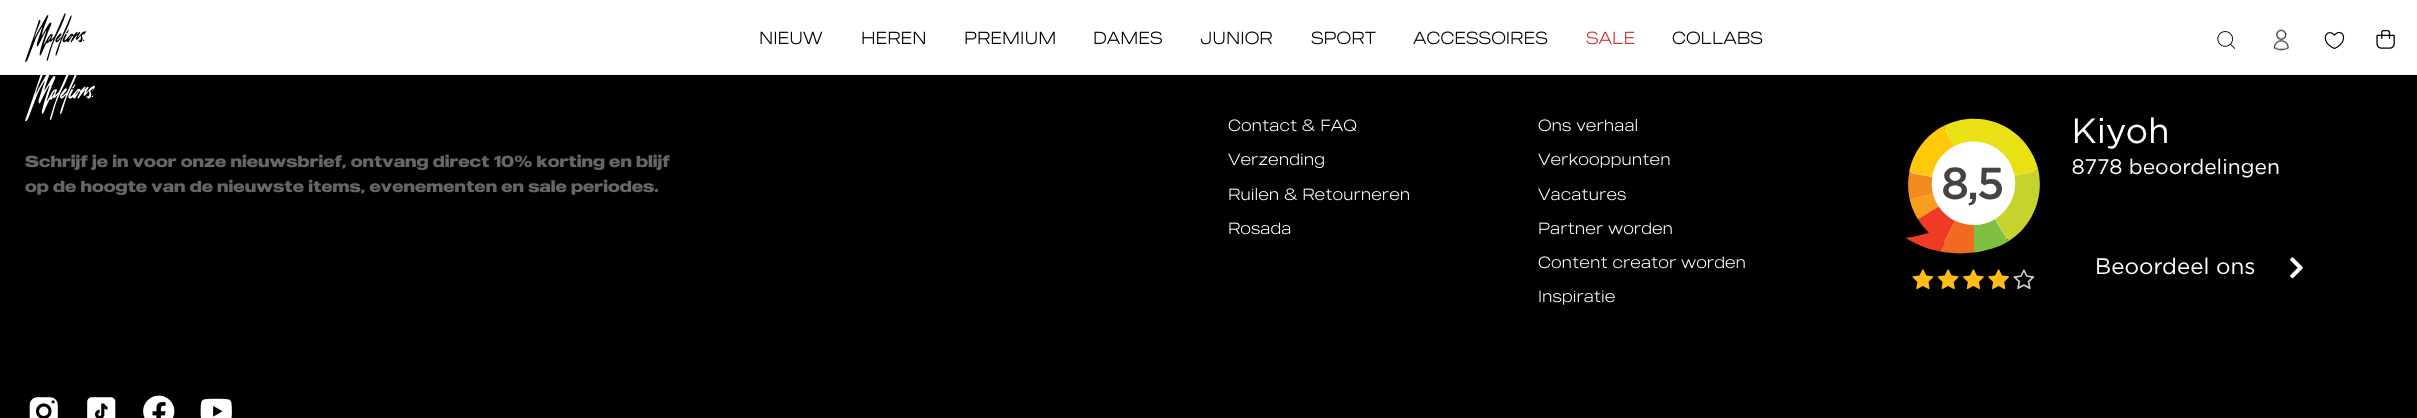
#include <cairo/cairo.h>
#include <math.h>
#include <stddef.h>

typedef struct { double x, y; const char *s; } line_t;
static cairo_t *cr;

static void rgb(unsigned color)
{
	cairo_set_source_rgb(cr, (color >> 16) / 255.0, (color >> 8 & 255) / 255.0, (color & 255) / 255.0);
}

static void image(const char *path, double x, double y, double w, double h)
{
	cairo_surface_t *image = cairo_image_surface_create_from_png(path);
	cairo_save(cr);
	cairo_set_source_surface(cr, image, x, y);
	cairo_rectangle(cr, x, y, w, h);
	cairo_fill(cr);
	cairo_restore(cr);
	cairo_surface_destroy(image);
}

int main(void) {
	cairo_surface_t *surface = cairo_image_surface_create(CAIRO_FORMAT_RGB24, 2417, 418);
	cr = cairo_create(surface);
	cairo_font_options_t *options = cairo_font_options_create();
	cairo_font_options_set_hint_metrics(options, CAIRO_HINT_METRICS_OFF);
	cairo_font_options_set_hint_style(options, CAIRO_HINT_STYLE_NONE);
	cairo_set_font_options(cr, options);
	cairo_set_miter_limit(cr, 4);
	rgb(0x000000);
	cairo_paint(cr);
	rgb(0xffffff);
	cairo_rectangle(cr, 0, 0, 2417, 74);
	cairo_fill(cr);
	rgb(0xf3f3f3);
	cairo_rectangle(cr, 0, 74, 2417, 1);
	cairo_fill(cr);
	image("img/1.png", 25, 13, 61, 49);
	image("img/2.png", 2217, 31, 19, 18);
	image("img/3.png", 2273, 29, 16, 22);
	cairo_new_path(cr);
	cairo_move_to(cr, 2334.5, 48.5);
	cairo_curve_to(cr, 2318.5, 41.5, 2326.5, 27, 2334.5, 35);
	cairo_curve_to(cr, 2342.5, 26.5, 2350, 41.5, 2334.5, 48.5);
	cairo_close_path(cr);
	rgb(0x000000);
	cairo_set_line_width(cr, 1.2);
	cairo_stroke(cr);
	image("img/4.png", 2376, 30, 19, 19);
	image("img/5.png", 25, 75, 70, 46);
	image("img/6.png", 1906, 117, 397, 172);
	image("img/7.png", 29, 397, 29, 21);
	image("img/8.png", 87, 397, 29, 21);
	image("img/9.png", 143, 395, 32, 23);
	image("img/10.png", 200, 398, 32, 20);
	cairo_select_font_face(cr, "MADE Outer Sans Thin", CAIRO_FONT_SLANT_NORMAL, CAIRO_FONT_WEIGHT_NORMAL);
	cairo_set_font_size(cr, 17.5);
	{
		static const line_t items[] = {
			{759, 44, "NIEUW"},
			{861, 44, "HEREN"},
			{964, 44, "PREMIUM"},
			{1093, 44, "DAMES"},
			{1200, 44, "JUNIOR"},
			{1311, 44, "SPORT"},
			{1413, 44, "ACCESSOIRES"},
		};
		for (size_t i = 0; i < sizeof items / sizeof *items; i++) {
			cairo_move_to(cr, items[i].x, items[i].y);
			cairo_show_text(cr, items[i].s);
		}
	}
	rgb(0xd02e2e);
	cairo_move_to(cr, 1586, 44);
	cairo_show_text(cr, "SALE");
	rgb(0x000000);
	cairo_move_to(cr, 1672, 44);
	cairo_show_text(cr, "COLLABS");
	cairo_select_font_face(cr, "MADE Outer Sans", CAIRO_FONT_SLANT_NORMAL, CAIRO_FONT_WEIGHT_BOLD);
	cairo_set_font_size(cr, 16);
	rgb(0x666666);
	cairo_move_to(cr, 25, 167);
	cairo_show_text(cr, "Schrijf je in voor onze nieuwsbrief, ontvang direct 10% korting en blijf");
	cairo_move_to(cr, 25, 192);
	cairo_show_text(cr, "op de hoogte van de nieuwste items, evenementen en sale periodes.");
	cairo_select_font_face(cr, "MADE Outer Sans Thin", CAIRO_FONT_SLANT_NORMAL, CAIRO_FONT_WEIGHT_NORMAL);
	cairo_set_font_size(cr, 16.25);
	rgb(0xffffff);
	{
		static const line_t items[] = {
			{1228, 131, "Contact & FAQ"},
			{1228, 165, "Verzending"},
			{1228, 200, "Ruilen & Retourneren"},
			{1228, 234, "Rosada"},
			{1538, 131, "Ons verhaal"},
			{1538, 165, "Verkooppunten"},
			{1538, 200, "Vacatures"},
			{1538, 234, "Partner worden"},
			{1538, 268, "Content creator worden"},
			{1538, 302, "Inspiratie"},
		};
		for (size_t i = 0; i < sizeof items / sizeof *items; i++) {
			cairo_move_to(cr, items[i].x, items[i].y);
			cairo_show_text(cr, items[i].s);
		}
	}
	cairo_surface_write_to_png(surface, "page.png");
	cairo_font_options_destroy(options);
	cairo_destroy(cr);
	cairo_surface_destroy(surface);
	return 0;
}
